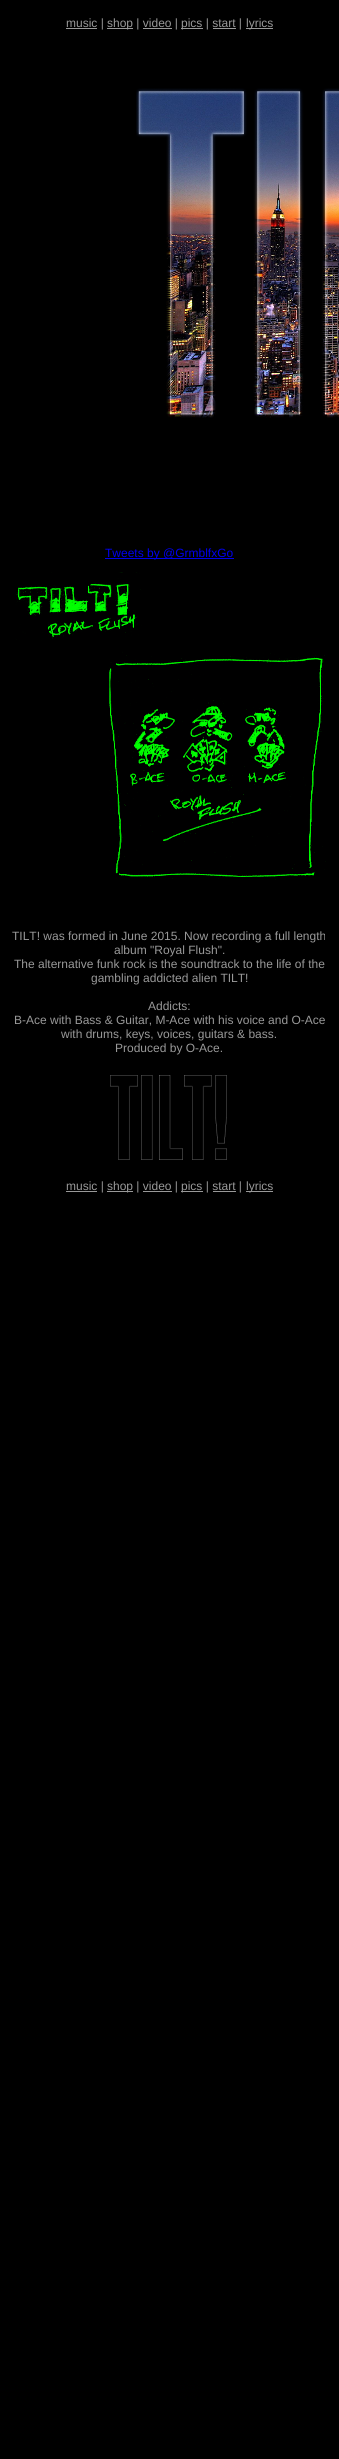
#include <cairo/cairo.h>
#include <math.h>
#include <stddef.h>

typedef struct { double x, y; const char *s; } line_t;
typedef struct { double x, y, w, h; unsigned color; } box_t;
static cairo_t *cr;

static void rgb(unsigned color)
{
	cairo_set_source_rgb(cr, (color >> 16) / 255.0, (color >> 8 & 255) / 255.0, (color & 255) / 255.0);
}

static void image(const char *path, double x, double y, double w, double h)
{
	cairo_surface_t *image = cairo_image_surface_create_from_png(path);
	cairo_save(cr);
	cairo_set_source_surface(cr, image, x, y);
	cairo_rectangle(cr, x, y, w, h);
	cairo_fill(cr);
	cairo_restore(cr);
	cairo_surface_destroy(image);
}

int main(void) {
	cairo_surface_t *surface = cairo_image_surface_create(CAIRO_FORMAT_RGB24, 339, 2459);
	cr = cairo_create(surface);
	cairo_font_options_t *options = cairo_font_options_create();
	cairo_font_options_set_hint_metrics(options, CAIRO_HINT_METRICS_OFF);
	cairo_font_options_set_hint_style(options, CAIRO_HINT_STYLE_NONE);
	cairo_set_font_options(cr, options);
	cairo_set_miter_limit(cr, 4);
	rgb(0x000000);
	cairo_paint(cr);
	{
		static const box_t items[] = {
			{66, 28, 31, 1, 0x999999},
			{107, 28, 26, 1, 0x999999},
			{143, 28, 29, 1, 0x999999},
			{181, 28, 22, 1, 0x999999},
			{213, 28, 23, 1, 0x999999},
			{246, 28, 27, 1, 0x999999},
		};
		for (size_t i = 0; i < sizeof items / sizeof *items; i++) {
			rgb(items[i].color);
			cairo_rectangle(cr, items[i].x, items[i].y, items[i].w, items[i].h);
			cairo_fill(cr);
		}
	}
	image("img/1.png", 136, 88, 203, 330);
	rgb(0x0000ee);
	cairo_rectangle(cr, 105, 558, 129, 1);
	cairo_fill(cr);
	image("img/2.png", 15, 572, 311, 308);
	image("img/3.png", 110, 1075, 117, 85);
	{
		static const box_t items[] = {
			{66, 1191, 31, 1, 0x999999},
			{107, 1191, 26, 1, 0x999999},
			{181, 1191, 22, 1, 0x999999},
			{246, 1191, 27, 1, 0x999999},
			{143, 1191, 29, 1, 0x999999},
			{213, 1191, 23, 1, 0x999999},
		};
		for (size_t i = 0; i < sizeof items / sizeof *items; i++) {
			rgb(items[i].color);
			cairo_rectangle(cr, items[i].x, items[i].y, items[i].w, items[i].h);
			cairo_fill(cr);
		}
	}
	cairo_select_font_face(cr, "Liberation Sans", CAIRO_FONT_SLANT_NORMAL, CAIRO_FONT_WEIGHT_NORMAL);
	cairo_set_font_size(cr, 12);
	{
		static const line_t items[] = {
			{66, 27, "music |"},
			{107, 27, "shop | video |"},
			{181, 27, "pics | start |"},
			{246, 27, "lyrics"},
		};
		for (size_t i = 0; i < sizeof items / sizeof *items; i++) {
			cairo_move_to(cr, items[i].x, items[i].y);
			cairo_show_text(cr, items[i].s);
		}
	}
	rgb(0x0000ee);
	cairo_move_to(cr, 105, 557);
	cairo_show_text(cr, "Tweets by @GrmblfxGo");
	rgb(0x999999);
	{
		static const line_t items[] = {
			{12, 940, "TILT! was formed in June 2015. Now recording a full length"},
			{114, 954, "album \"Royal Flush\"."},
			{14, 968, "The alternative funk rock is the soundtrack to the life of the"},
			{91, 982, "gambling addicted alien TILT!"},
			{148, 1010, "Addicts:"},
			{14, 1024, "B-Ace with Bass & Guitar, M-Ace with his voice and O-Ace"},
			{61, 1038, "with drums, keys, voices, guitars & bass."},
			{115, 1052, "Produced by O-Ace."},
			{66, 1190, "music |"},
			{107, 1190, "shop | video |"},
			{181, 1190, "pics | start |"},
			{246, 1190, "lyrics"},
		};
		for (size_t i = 0; i < sizeof items / sizeof *items; i++) {
			cairo_move_to(cr, items[i].x, items[i].y);
			cairo_show_text(cr, items[i].s);
		}
	}
	cairo_surface_write_to_png(surface, "page.png");
	cairo_font_options_destroy(options);
	cairo_destroy(cr);
	cairo_surface_destroy(surface);
	return 0;
}
